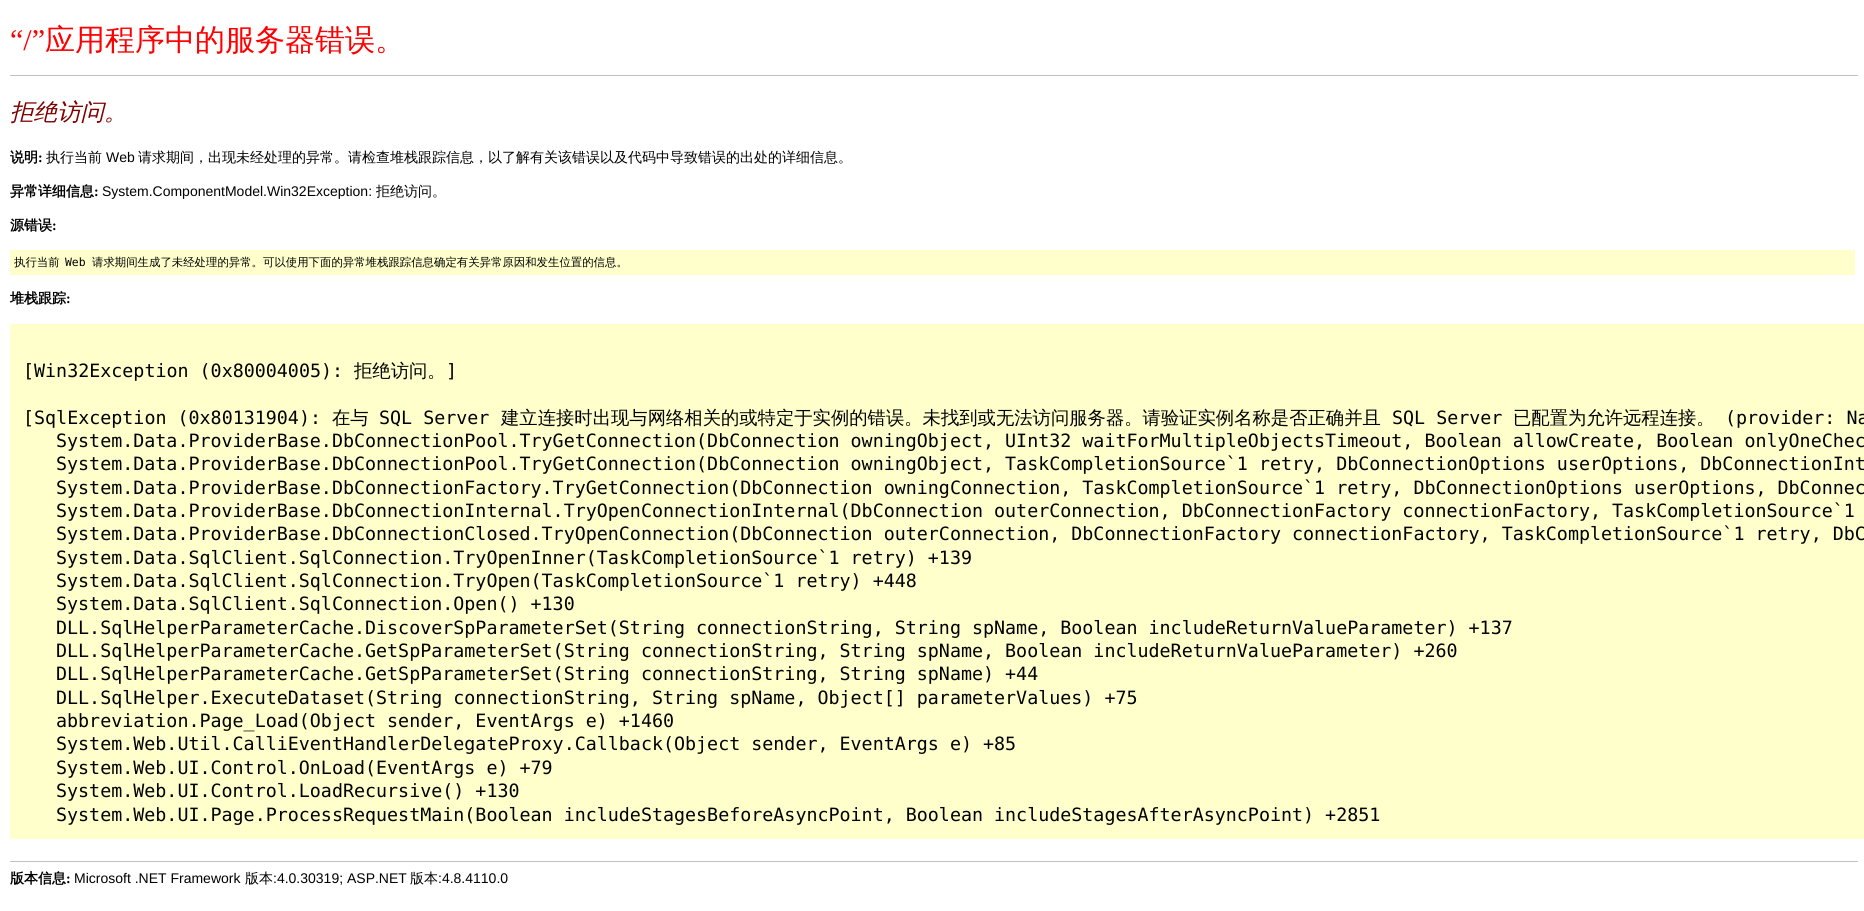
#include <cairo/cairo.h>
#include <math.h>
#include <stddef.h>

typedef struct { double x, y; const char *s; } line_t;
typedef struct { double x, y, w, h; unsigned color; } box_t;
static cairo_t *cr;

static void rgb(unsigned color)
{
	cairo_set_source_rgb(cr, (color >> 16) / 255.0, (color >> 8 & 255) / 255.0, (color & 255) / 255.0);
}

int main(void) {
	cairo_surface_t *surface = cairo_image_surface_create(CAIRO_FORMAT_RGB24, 1864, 911);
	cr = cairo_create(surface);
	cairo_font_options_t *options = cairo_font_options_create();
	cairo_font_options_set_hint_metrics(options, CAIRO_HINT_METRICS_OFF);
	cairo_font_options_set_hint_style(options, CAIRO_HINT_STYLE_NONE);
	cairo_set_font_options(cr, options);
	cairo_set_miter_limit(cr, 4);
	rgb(0xffffff);
	cairo_paint(cr);
	{
		static const box_t items[] = {
			{10, 75, 1848, 1, 0xc0c0c0},
			{10, 250, 1845, 25, 0xffffcc},
			{10, 324, 1854, 515, 0xffffcc},
			{10, 861, 1848, 1, 0xc0c0c0},
		};
		for (size_t i = 0; i < sizeof items / sizeof *items; i++) {
			rgb(items[i].color);
			cairo_rectangle(cr, items[i].x, items[i].y, items[i].w, items[i].h);
			cairo_fill(cr);
		}
	}
	cairo_select_font_face(cr, "Liberation Serif", CAIRO_FONT_SLANT_NORMAL, CAIRO_FONT_WEIGHT_NORMAL);
	cairo_set_font_size(cr, 30);
	rgb(0xff0000);
	cairo_move_to(cr, 10, 50);
	cairo_show_text(cr, "“/”");
	cairo_select_font_face(cr, "WenQuanYi Zen Hei Medium", CAIRO_FONT_SLANT_NORMAL, CAIRO_FONT_WEIGHT_NORMAL);
	cairo_move_to(cr, 45, 50);
	cairo_show_text(cr, "应用程序中的服务器错误。");
	cairo_select_font_face(cr, "WenQuanYi Zen Hei Medium", CAIRO_FONT_SLANT_ITALIC, CAIRO_FONT_WEIGHT_NORMAL);
	cairo_set_font_size(cr, 23.5);
	rgb(0x800000);
	cairo_move_to(cr, 10, 120);
	cairo_show_text(cr, "拒绝访问。");
	cairo_select_font_face(cr, "WenQuanYi Zen Hei", CAIRO_FONT_SLANT_NORMAL, CAIRO_FONT_WEIGHT_BOLD);
	cairo_set_font_size(cr, 14);
	rgb(0x000000);
	cairo_move_to(cr, 10, 162);
	cairo_show_text(cr, "说明");
	cairo_select_font_face(cr, "Liberation Serif", CAIRO_FONT_SLANT_NORMAL, CAIRO_FONT_WEIGHT_BOLD);
	cairo_move_to(cr, 38, 162);
	cairo_show_text(cr, ":");
	cairo_select_font_face(cr, "WenQuanYi Zen Hei Medium", CAIRO_FONT_SLANT_NORMAL, CAIRO_FONT_WEIGHT_NORMAL);
	cairo_move_to(cr, 46, 162);
	cairo_show_text(cr, "执行当前");
	cairo_select_font_face(cr, "Liberation Sans", CAIRO_FONT_SLANT_NORMAL, CAIRO_FONT_WEIGHT_NORMAL);
	cairo_move_to(cr, 106, 162);
	cairo_show_text(cr, "Web");
	cairo_select_font_face(cr, "WenQuanYi Zen Hei Medium", CAIRO_FONT_SLANT_NORMAL, CAIRO_FONT_WEIGHT_NORMAL);
	cairo_move_to(cr, 138, 162);
	cairo_show_text(cr, "请求期间，出现未经处理的异常。请检查堆栈跟踪信息，以了解有关该错误以及代码中导致错误的出处的详细信息。");
	cairo_select_font_face(cr, "WenQuanYi Zen Hei", CAIRO_FONT_SLANT_NORMAL, CAIRO_FONT_WEIGHT_BOLD);
	cairo_move_to(cr, 10, 196);
	cairo_show_text(cr, "异常详细信息");
	cairo_select_font_face(cr, "Liberation Serif", CAIRO_FONT_SLANT_NORMAL, CAIRO_FONT_WEIGHT_BOLD);
	cairo_move_to(cr, 94, 196);
	cairo_show_text(cr, ":");
	cairo_select_font_face(cr, "Liberation Sans", CAIRO_FONT_SLANT_NORMAL, CAIRO_FONT_WEIGHT_NORMAL);
	cairo_move_to(cr, 102, 196);
	cairo_show_text(cr, "System.ComponentModel.Win32Exception:");
	cairo_select_font_face(cr, "WenQuanYi Zen Hei Medium", CAIRO_FONT_SLANT_NORMAL, CAIRO_FONT_WEIGHT_NORMAL);
	cairo_move_to(cr, 376, 196);
	cairo_show_text(cr, "拒绝访问。");
	cairo_select_font_face(cr, "WenQuanYi Zen Hei", CAIRO_FONT_SLANT_NORMAL, CAIRO_FONT_WEIGHT_BOLD);
	cairo_move_to(cr, 10, 230);
	cairo_show_text(cr, "源错误");
	cairo_select_font_face(cr, "Liberation Serif", CAIRO_FONT_SLANT_NORMAL, CAIRO_FONT_WEIGHT_BOLD);
	cairo_move_to(cr, 52, 230);
	cairo_show_text(cr, ":");
	cairo_select_font_face(cr, "WenQuanYi Zen Hei Medium", CAIRO_FONT_SLANT_NORMAL, CAIRO_FONT_WEIGHT_NORMAL);
	cairo_set_font_size(cr, 11.4);
	cairo_move_to(cr, 14, 266);
	cairo_show_text(cr, "执行当前");
	cairo_select_font_face(cr, "DejaVu Sans Mono", CAIRO_FONT_SLANT_NORMAL, CAIRO_FONT_WEIGHT_NORMAL);
	cairo_move_to(cr, 65, 266);
	cairo_show_text(cr, "Web");
	cairo_select_font_face(cr, "WenQuanYi Zen Hei Medium", CAIRO_FONT_SLANT_NORMAL, CAIRO_FONT_WEIGHT_NORMAL);
	cairo_move_to(cr, 92, 266);
	cairo_show_text(cr, "请求期间生成了未经处理的异常。可以使用下面的异常堆栈跟踪信息确定有关异常原因和发生位置的信息。");
	cairo_select_font_face(cr, "WenQuanYi Zen Hei", CAIRO_FONT_SLANT_NORMAL, CAIRO_FONT_WEIGHT_BOLD);
	cairo_set_font_size(cr, 14);
	cairo_move_to(cr, 10, 303);
	cairo_show_text(cr, "堆栈跟踪");
	cairo_select_font_face(cr, "Liberation Serif", CAIRO_FONT_SLANT_NORMAL, CAIRO_FONT_WEIGHT_BOLD);
	cairo_move_to(cr, 66, 303);
	cairo_show_text(cr, ":");
	cairo_select_font_face(cr, "DejaVu Sans Mono", CAIRO_FONT_SLANT_NORMAL, CAIRO_FONT_WEIGHT_NORMAL);
	cairo_set_font_size(cr, 18.33);
	cairo_move_to(cr, 23, 377);
	cairo_show_text(cr, "[Win32Exception (0x80004005):");
	cairo_select_font_face(cr, "WenQuanYi Zen Hei Medium", CAIRO_FONT_SLANT_NORMAL, CAIRO_FONT_WEIGHT_NORMAL);
	cairo_move_to(cr, 354, 377);
	cairo_show_text(cr, "拒绝访问。");
	cairo_select_font_face(cr, "DejaVu Sans Mono", CAIRO_FONT_SLANT_NORMAL, CAIRO_FONT_WEIGHT_NORMAL);
	cairo_move_to(cr, 446, 377);
	cairo_show_text(cr, "]");
	cairo_move_to(cr, 23, 424);
	cairo_show_text(cr, "[SqlException (0x80131904):");
	cairo_select_font_face(cr, "WenQuanYi Zen Hei Medium", CAIRO_FONT_SLANT_NORMAL, CAIRO_FONT_WEIGHT_NORMAL);
	cairo_move_to(cr, 332, 424);
	cairo_show_text(cr, "在与");
	cairo_select_font_face(cr, "DejaVu Sans Mono", CAIRO_FONT_SLANT_NORMAL, CAIRO_FONT_WEIGHT_NORMAL);
	cairo_move_to(cr, 379, 424);
	cairo_show_text(cr, "SQL Server");
	cairo_select_font_face(cr, "WenQuanYi Zen Hei Medium", CAIRO_FONT_SLANT_NORMAL, CAIRO_FONT_WEIGHT_NORMAL);
	cairo_move_to(cr, 501, 424);
	cairo_show_text(cr, "建立连接时出现与网络相关的或特定于实例的错误。未找到或无法访问服务器。请验证实例名称是否正确并且");
	cairo_select_font_face(cr, "DejaVu Sans Mono", CAIRO_FONT_SLANT_NORMAL, CAIRO_FONT_WEIGHT_NORMAL);
	cairo_move_to(cr, 1392, 424);
	cairo_show_text(cr, "SQL Server");
	cairo_select_font_face(cr, "WenQuanYi Zen Hei Medium", CAIRO_FONT_SLANT_NORMAL, CAIRO_FONT_WEIGHT_NORMAL);
	cairo_move_to(cr, 1513, 424);
	cairo_show_text(cr, "已配置为允许远程连接。");
	cairo_select_font_face(cr, "DejaVu Sans Mono", CAIRO_FONT_SLANT_NORMAL, CAIRO_FONT_WEIGHT_NORMAL);
	{
		static const line_t items[] = {
			{1725, 424, "(provider: Na"},
			{56, 447, "System.Data.ProviderBase.DbConnectionPool.TryGetConnection(DbConnection owningObject, UInt32 waitForMultipleObjectsTimeout, Boolean allowCreate, Boolean onlyOneChec"},
			{56, 470, "System.Data.ProviderBase.DbConnectionPool.TryGetConnection(DbConnection owningObject, TaskCompletionSource`1 retry, DbConnectionOptions userOptions, DbConnectionInt"},
			{56, 494, "System.Data.ProviderBase.DbConnectionFactory.TryGetConnection(DbConnection owningConnection, TaskCompletionSource`1 retry, DbConnectionOptions userOptions, DbConnec"},
			{56, 517, "System.Data.ProviderBase.DbConnectionInternal.TryOpenConnectionInternal(DbConnection outerConnection, DbConnectionFactory connectionFactory, TaskCompletionSource`1"},
			{56, 540, "System.Data.ProviderBase.DbConnectionClosed.TryOpenConnection(DbConnection outerConnection, DbConnectionFactory connectionFactory, TaskCompletionSource`1 retry, DbC"},
			{56, 564, "System.Data.SqlClient.SqlConnection.TryOpenInner(TaskCompletionSource`1 retry) +139"},
			{56, 587, "System.Data.SqlClient.SqlConnection.TryOpen(TaskCompletionSource`1 retry) +448"},
			{56, 610, "System.Data.SqlClient.SqlConnection.Open() +130"},
			{56, 634, "DLL.SqlHelperParameterCache.DiscoverSpParameterSet(String connectionString, String spName, Boolean includeReturnValueParameter) +137"},
			{56, 657, "DLL.SqlHelperParameterCache.GetSpParameterSet(String connectionString, String spName, Boolean includeReturnValueParameter) +260"},
			{56, 680, "DLL.SqlHelperParameterCache.GetSpParameterSet(String connectionString, String spName) +44"},
			{56, 704, "DLL.SqlHelper.ExecuteDataset(String connectionString, String spName, Object[] parameterValues) +75"},
			{56, 727, "abbreviation.Page_Load(Object sender, EventArgs e) +1460"},
			{56, 750, "System.Web.Util.CalliEventHandlerDelegateProxy.Callback(Object sender, EventArgs e) +85"},
			{56, 774, "System.Web.UI.Control.OnLoad(EventArgs e) +79"},
			{56, 797, "System.Web.UI.Control.LoadRecursive() +130"},
			{56, 821, "System.Web.UI.Page.ProcessRequestMain(Boolean includeStagesBeforeAsyncPoint, Boolean includeStagesAfterAsyncPoint) +2851"},
		};
		for (size_t i = 0; i < sizeof items / sizeof *items; i++) {
			cairo_move_to(cr, items[i].x, items[i].y);
			cairo_show_text(cr, items[i].s);
		}
	}
	cairo_select_font_face(cr, "WenQuanYi Zen Hei", CAIRO_FONT_SLANT_NORMAL, CAIRO_FONT_WEIGHT_BOLD);
	cairo_set_font_size(cr, 14);
	cairo_move_to(cr, 10, 883);
	cairo_show_text(cr, "版本信息");
	cairo_select_font_face(cr, "Liberation Serif", CAIRO_FONT_SLANT_NORMAL, CAIRO_FONT_WEIGHT_BOLD);
	cairo_move_to(cr, 66, 883);
	cairo_show_text(cr, ":");
	cairo_select_font_face(cr, "Liberation Sans", CAIRO_FONT_SLANT_NORMAL, CAIRO_FONT_WEIGHT_NORMAL);
	cairo_move_to(cr, 74, 883);
	cairo_show_text(cr, "Microsoft .NET Framework");
	cairo_select_font_face(cr, "WenQuanYi Zen Hei Medium", CAIRO_FONT_SLANT_NORMAL, CAIRO_FONT_WEIGHT_NORMAL);
	cairo_move_to(cr, 245, 883);
	cairo_show_text(cr, "版本");
	cairo_select_font_face(cr, "Liberation Sans", CAIRO_FONT_SLANT_NORMAL, CAIRO_FONT_WEIGHT_NORMAL);
	cairo_move_to(cr, 273, 883);
	cairo_show_text(cr, ":4.0.30319; ASP.NET");
	cairo_select_font_face(cr, "WenQuanYi Zen Hei Medium", CAIRO_FONT_SLANT_NORMAL, CAIRO_FONT_WEIGHT_NORMAL);
	cairo_move_to(cr, 410, 883);
	cairo_show_text(cr, "版本");
	cairo_select_font_face(cr, "Liberation Sans", CAIRO_FONT_SLANT_NORMAL, CAIRO_FONT_WEIGHT_NORMAL);
	cairo_move_to(cr, 438, 883);
	cairo_show_text(cr, ":4.8.4110.0");
	cairo_surface_write_to_png(surface, "page.png");
	cairo_font_options_destroy(options);
	cairo_destroy(cr);
	cairo_surface_destroy(surface);
	return 0;
}
